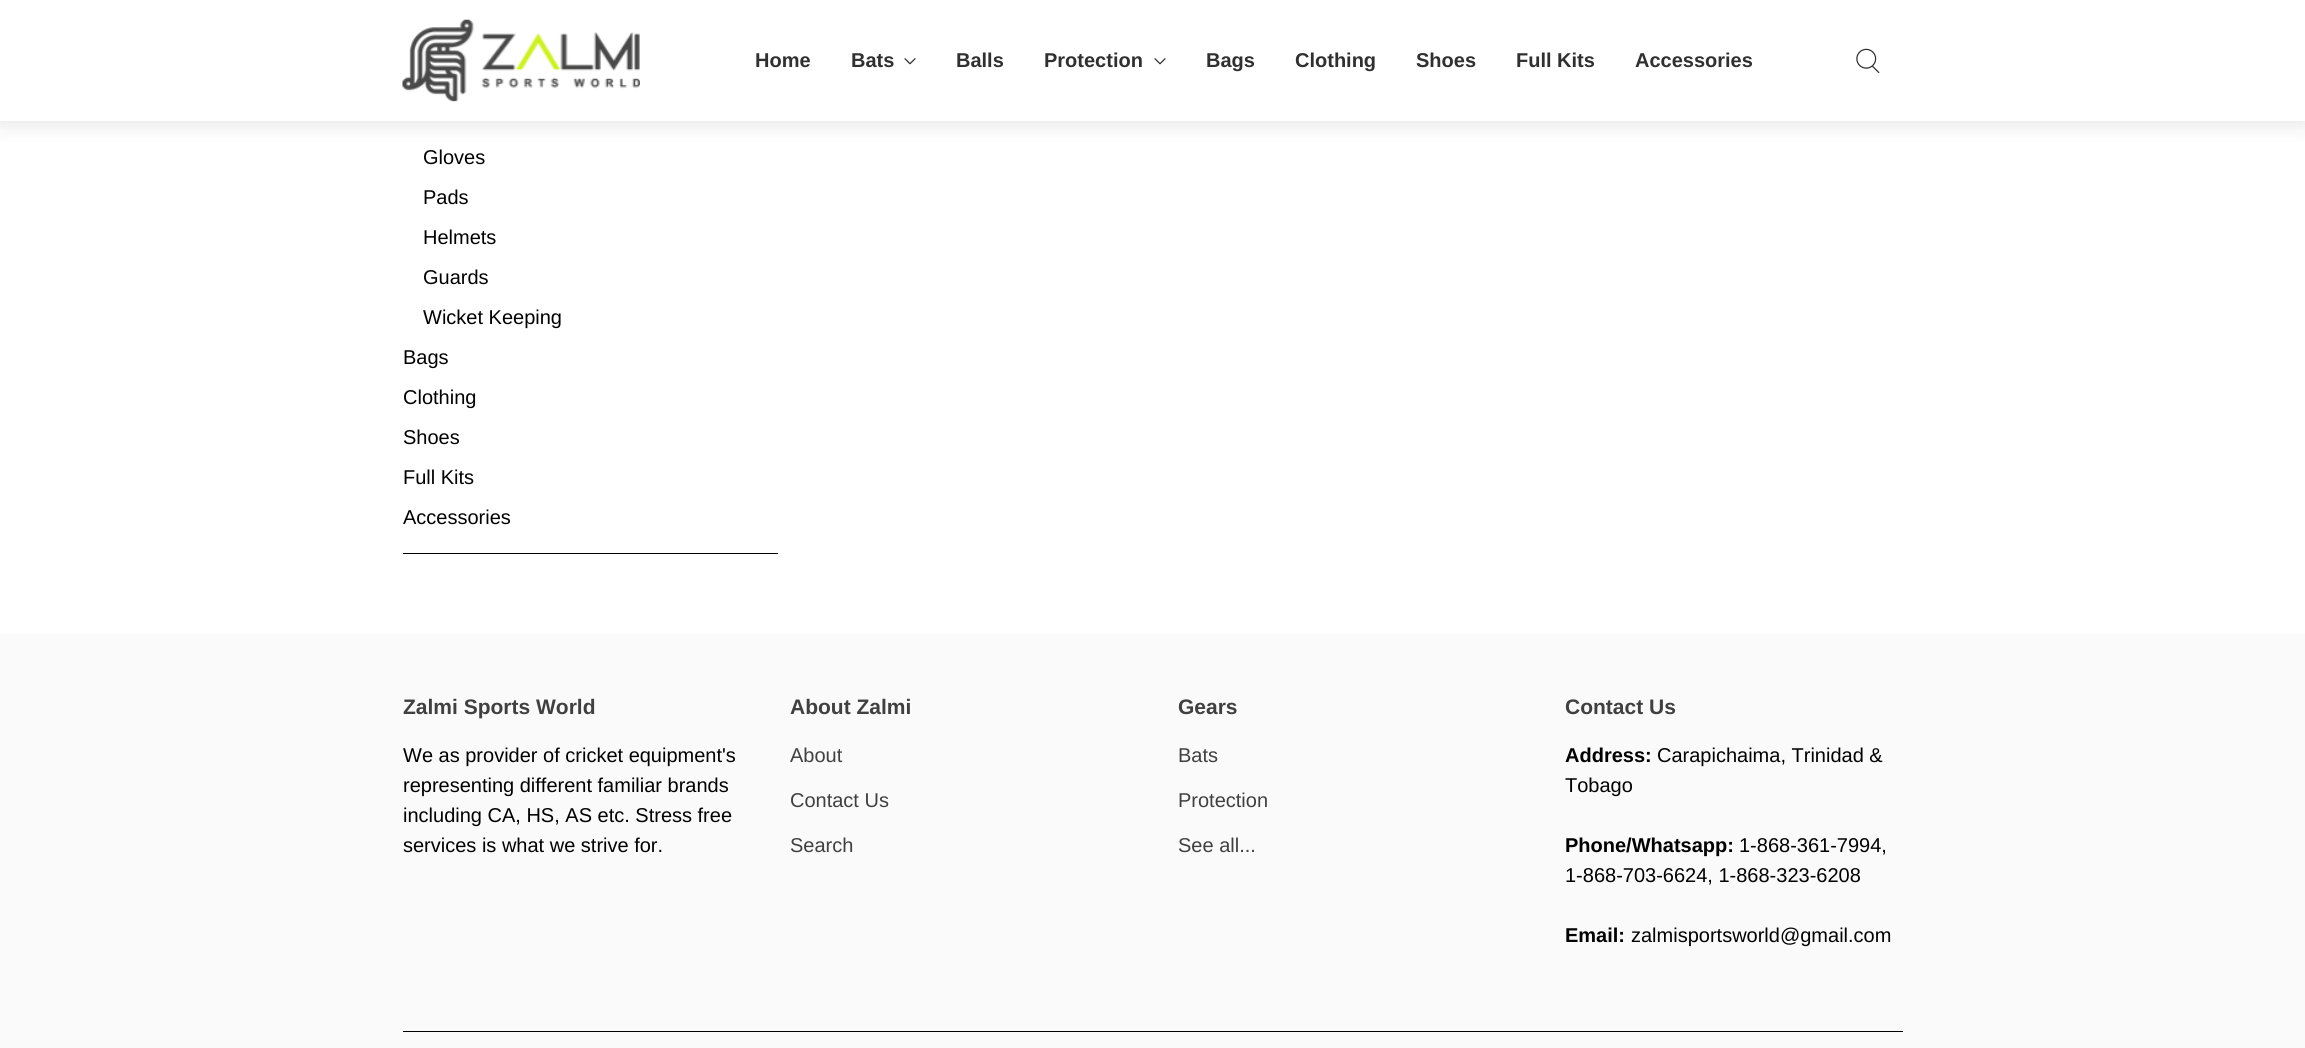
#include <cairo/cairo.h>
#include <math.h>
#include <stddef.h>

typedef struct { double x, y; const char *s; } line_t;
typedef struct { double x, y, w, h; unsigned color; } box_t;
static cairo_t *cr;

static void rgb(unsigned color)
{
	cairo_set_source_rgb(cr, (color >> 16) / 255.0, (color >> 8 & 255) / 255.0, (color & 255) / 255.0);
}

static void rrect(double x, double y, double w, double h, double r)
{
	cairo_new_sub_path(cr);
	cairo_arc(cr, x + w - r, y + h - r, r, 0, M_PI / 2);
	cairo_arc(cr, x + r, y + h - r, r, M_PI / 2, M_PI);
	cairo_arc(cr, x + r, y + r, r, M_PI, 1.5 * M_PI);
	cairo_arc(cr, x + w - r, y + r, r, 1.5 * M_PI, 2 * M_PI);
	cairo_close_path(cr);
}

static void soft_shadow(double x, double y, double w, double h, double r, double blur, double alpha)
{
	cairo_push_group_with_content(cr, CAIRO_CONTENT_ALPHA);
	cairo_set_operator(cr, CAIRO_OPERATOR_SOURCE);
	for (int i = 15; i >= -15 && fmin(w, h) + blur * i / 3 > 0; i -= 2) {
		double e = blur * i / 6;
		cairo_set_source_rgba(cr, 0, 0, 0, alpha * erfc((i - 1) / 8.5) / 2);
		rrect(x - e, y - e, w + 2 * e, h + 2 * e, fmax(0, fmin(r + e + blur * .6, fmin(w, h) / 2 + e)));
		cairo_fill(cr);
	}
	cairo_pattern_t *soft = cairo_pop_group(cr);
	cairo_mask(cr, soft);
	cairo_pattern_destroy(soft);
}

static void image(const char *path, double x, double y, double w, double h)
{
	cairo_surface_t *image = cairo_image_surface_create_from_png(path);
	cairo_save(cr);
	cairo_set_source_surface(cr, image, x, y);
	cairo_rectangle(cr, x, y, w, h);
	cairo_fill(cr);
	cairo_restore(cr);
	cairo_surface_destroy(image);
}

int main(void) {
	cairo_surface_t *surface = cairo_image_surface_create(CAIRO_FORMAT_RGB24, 2305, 1048);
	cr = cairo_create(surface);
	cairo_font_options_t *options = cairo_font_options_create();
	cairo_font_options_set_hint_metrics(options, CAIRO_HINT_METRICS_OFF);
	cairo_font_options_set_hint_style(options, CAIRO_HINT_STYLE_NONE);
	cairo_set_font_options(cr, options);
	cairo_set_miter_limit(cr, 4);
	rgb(0xffffff);
	cairo_paint(cr);
	rgb(0x000000);
	soft_shadow(-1, -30, 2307, 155, 0, 10, 0.1);
	rgb(0xffffff);
	cairo_rectangle(cr, 0, 0, 2305, 121);
	cairo_fill(cr);
	image("img/1.png", 402, 19, 238, 83);
	image("img/2.png", 904, 58, 12, 7);
	image("img/2.png", 1154, 58, 12, 7);
	image("img/3.png", 1856, 48, 24, 26);
	{
		static const box_t items[] = {
			{403, 553, 375, 1, 0x000000},
			{0, 634, 2305, 414, 0xfafafa},
			{403, 1031, 1500, 1, 0x000000},
		};
		for (size_t i = 0; i < sizeof items / sizeof *items; i++) {
			rgb(items[i].color);
			cairo_rectangle(cr, items[i].x, items[i].y, items[i].w, items[i].h);
			cairo_fill(cr);
		}
	}
	cairo_select_font_face(cr, "Liberation Sans", CAIRO_FONT_SLANT_NORMAL, CAIRO_FONT_WEIGHT_BOLD);
	cairo_set_font_size(cr, 20);
	rgb(0x303030);
	{
		static const line_t items[] = {
			{755, 67, "Home"},
			{851, 67, "Bats"},
			{956, 67, "Balls"},
			{1044, 67, "Protection"},
			{1206, 67, "Bags"},
			{1295, 67, "Clothing"},
			{1416, 67, "Shoes"},
			{1516, 67, "Full Kits"},
			{1635, 67, "Accessories"},
		};
		for (size_t i = 0; i < sizeof items / sizeof *items; i++) {
			cairo_move_to(cr, items[i].x, items[i].y);
			cairo_show_text(cr, items[i].s);
		}
	}
	cairo_select_font_face(cr, "Liberation Sans", CAIRO_FONT_SLANT_NORMAL, CAIRO_FONT_WEIGHT_NORMAL);
	rgb(0x000000);
	{
		static const line_t items[] = {
			{423, 164, "Gloves"},
			{423, 204, "Pads"},
			{423, 244, "Helmets"},
			{423, 284, "Guards"},
			{423, 324, "Wicket Keeping"},
			{403, 364, "Bags"},
			{403, 404, "Clothing"},
			{403, 444, "Shoes"},
			{403, 484, "Full Kits"},
			{403, 524, "Accessories"},
		};
		for (size_t i = 0; i < sizeof items / sizeof *items; i++) {
			cairo_move_to(cr, items[i].x, items[i].y);
			cairo_show_text(cr, items[i].s);
		}
	}
	cairo_select_font_face(cr, "Liberation Sans", CAIRO_FONT_SLANT_NORMAL, CAIRO_FONT_WEIGHT_BOLD);
	cairo_set_font_size(cr, 21);
	rgb(0x404040);
	cairo_move_to(cr, 403, 714);
	cairo_show_text(cr, "Zalmi Sports World");
	cairo_select_font_face(cr, "Liberation Sans", CAIRO_FONT_SLANT_NORMAL, CAIRO_FONT_WEIGHT_NORMAL);
	cairo_set_font_size(cr, 20);
	rgb(0x000000);
	{
		static const line_t items[] = {
			{403, 762, "We as provider of cricket equipment's"},
			{403, 792, "representing different familiar brands"},
			{403, 822, "including CA, HS, AS etc. Stress free"},
			{403, 852, "services is what we strive for."},
		};
		for (size_t i = 0; i < sizeof items / sizeof *items; i++) {
			cairo_move_to(cr, items[i].x, items[i].y);
			cairo_show_text(cr, items[i].s);
		}
	}
	cairo_select_font_face(cr, "Liberation Sans", CAIRO_FONT_SLANT_NORMAL, CAIRO_FONT_WEIGHT_BOLD);
	cairo_set_font_size(cr, 21);
	rgb(0x404040);
	cairo_move_to(cr, 790, 714);
	cairo_show_text(cr, "About Zalmi");
	cairo_select_font_face(cr, "Liberation Sans", CAIRO_FONT_SLANT_NORMAL, CAIRO_FONT_WEIGHT_NORMAL);
	cairo_set_font_size(cr, 20);
	{
		static const line_t items[] = {
			{790, 762, "About"},
			{790, 807, "Contact Us"},
			{790, 852, "Search"},
		};
		for (size_t i = 0; i < sizeof items / sizeof *items; i++) {
			cairo_move_to(cr, items[i].x, items[i].y);
			cairo_show_text(cr, items[i].s);
		}
	}
	cairo_select_font_face(cr, "Liberation Sans", CAIRO_FONT_SLANT_NORMAL, CAIRO_FONT_WEIGHT_BOLD);
	cairo_set_font_size(cr, 21);
	cairo_move_to(cr, 1178, 714);
	cairo_show_text(cr, "Gears");
	cairo_select_font_face(cr, "Liberation Sans", CAIRO_FONT_SLANT_NORMAL, CAIRO_FONT_WEIGHT_NORMAL);
	cairo_set_font_size(cr, 20);
	{
		static const line_t items[] = {
			{1178, 762, "Bats"},
			{1178, 807, "Protection"},
			{1178, 852, "See all..."},
		};
		for (size_t i = 0; i < sizeof items / sizeof *items; i++) {
			cairo_move_to(cr, items[i].x, items[i].y);
			cairo_show_text(cr, items[i].s);
		}
	}
	cairo_select_font_face(cr, "Liberation Sans", CAIRO_FONT_SLANT_NORMAL, CAIRO_FONT_WEIGHT_BOLD);
	cairo_set_font_size(cr, 21);
	cairo_move_to(cr, 1565, 714);
	cairo_show_text(cr, "Contact Us");
	cairo_set_font_size(cr, 20);
	rgb(0x000000);
	cairo_move_to(cr, 1565, 762);
	cairo_show_text(cr, "Address:");
	cairo_select_font_face(cr, "Liberation Sans", CAIRO_FONT_SLANT_NORMAL, CAIRO_FONT_WEIGHT_NORMAL);
	cairo_move_to(cr, 1657, 762);
	cairo_show_text(cr, "Carapichaima, Trinidad &");
	cairo_move_to(cr, 1565, 792);
	cairo_show_text(cr, "Tobago");
	cairo_select_font_face(cr, "Liberation Sans", CAIRO_FONT_SLANT_NORMAL, CAIRO_FONT_WEIGHT_BOLD);
	cairo_move_to(cr, 1565, 852);
	cairo_show_text(cr, "Phone/Whatsapp:");
	cairo_select_font_face(cr, "Liberation Sans", CAIRO_FONT_SLANT_NORMAL, CAIRO_FONT_WEIGHT_NORMAL);
	cairo_move_to(cr, 1739, 852);
	cairo_show_text(cr, "1-868-361-7994,");
	cairo_move_to(cr, 1565, 882);
	cairo_show_text(cr, "1-868-703-6624, 1-868-323-6208");
	cairo_select_font_face(cr, "Liberation Sans", CAIRO_FONT_SLANT_NORMAL, CAIRO_FONT_WEIGHT_BOLD);
	cairo_move_to(cr, 1565, 942);
	cairo_show_text(cr, "Email:");
	cairo_select_font_face(cr, "Liberation Sans", CAIRO_FONT_SLANT_NORMAL, CAIRO_FONT_WEIGHT_NORMAL);
	cairo_move_to(cr, 1631, 942);
	cairo_show_text(cr, "zalmisportsworld@gmail.com");
	cairo_surface_write_to_png(surface, "page.png");
	cairo_font_options_destroy(options);
	cairo_destroy(cr);
	cairo_surface_destroy(surface);
	return 0;
}
